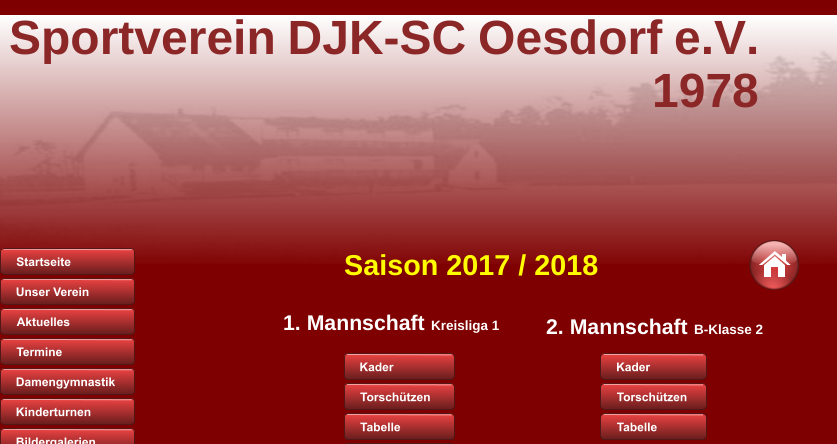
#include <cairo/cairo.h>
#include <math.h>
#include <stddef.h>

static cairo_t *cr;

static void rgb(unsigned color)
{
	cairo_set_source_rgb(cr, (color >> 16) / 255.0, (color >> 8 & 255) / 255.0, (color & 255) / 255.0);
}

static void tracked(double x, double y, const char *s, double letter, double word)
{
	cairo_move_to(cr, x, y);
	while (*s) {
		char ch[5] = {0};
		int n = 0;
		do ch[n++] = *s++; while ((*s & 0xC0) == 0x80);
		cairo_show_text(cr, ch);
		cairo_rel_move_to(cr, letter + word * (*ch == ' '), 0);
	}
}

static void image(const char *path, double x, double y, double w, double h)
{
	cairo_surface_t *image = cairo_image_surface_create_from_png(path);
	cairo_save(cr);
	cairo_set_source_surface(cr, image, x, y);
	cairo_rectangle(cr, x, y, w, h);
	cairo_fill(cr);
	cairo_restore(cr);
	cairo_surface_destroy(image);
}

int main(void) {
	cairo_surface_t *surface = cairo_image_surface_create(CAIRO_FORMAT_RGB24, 837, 444);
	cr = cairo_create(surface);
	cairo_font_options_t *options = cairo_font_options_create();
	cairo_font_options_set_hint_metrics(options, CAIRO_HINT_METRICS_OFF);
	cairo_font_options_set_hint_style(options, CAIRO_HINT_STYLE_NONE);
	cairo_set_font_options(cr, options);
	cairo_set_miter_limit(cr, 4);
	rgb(0x7f0000);
	cairo_paint(cr);
	image("img/1.png", 0, 15, 837, 249);
	image("img/2.png", 749, 240, 51, 50);
	image("img/3.png", 0, 248, 135, 27);
	image("img/4.png", 0, 278, 135, 27);
	image("img/5.png", 0, 308, 135, 27);
	image("img/6.png", 0, 338, 135, 27);
	image("img/7.png", 0, 368, 135, 27);
	image("img/8.png", 0, 398, 135, 27);
	image("img/9.png", 0, 428, 135, 16);
	image("img/10.png", 344, 353, 111, 27);
	image("img/11.png", 344, 383, 111, 27);
	image("img/12.png", 344, 413, 111, 27);
	image("img/13.png", 345, 443, 109, 1);
	image("img/14.png", 600, 353, 107, 27);
	image("img/15.png", 600, 383, 107, 27);
	image("img/16.png", 600, 413, 107, 27);
	cairo_select_font_face(cr, "Liberation Sans", CAIRO_FONT_SLANT_NORMAL, CAIRO_FONT_WEIGHT_BOLD);
	cairo_set_font_size(cr, 48);
	rgb(0x8c2727);
	tracked(9, 54, "Sportverein DJK-SC Oesdorf e.V.", 0, -1.5);
	cairo_move_to(cr, 652, 107);
	cairo_show_text(cr, "1978");
	cairo_set_font_size(cr, 28.75);
	rgb(0xfffc00);
	cairo_move_to(cr, 344, 275);
	cairo_show_text(cr, "Saison 2017 / 2018");
	cairo_set_font_size(cr, 21.25);
	rgb(0xffffff);
	cairo_move_to(cr, 283, 330);
	cairo_show_text(cr, "1. Mannschaft");
	cairo_set_font_size(cr, 13.5);
	cairo_move_to(cr, 431, 330);
	cairo_show_text(cr, "Kreisliga 1");
	cairo_set_font_size(cr, 21.25);
	cairo_move_to(cr, 546, 334);
	cairo_show_text(cr, "2. Mannschaft");
	cairo_set_font_size(cr, 13.5);
	cairo_move_to(cr, 694, 334);
	cairo_show_text(cr, "B-Klasse 2");
	cairo_surface_write_to_png(surface, "page.png");
	cairo_font_options_destroy(options);
	cairo_destroy(cr);
	cairo_surface_destroy(surface);
	return 0;
}
